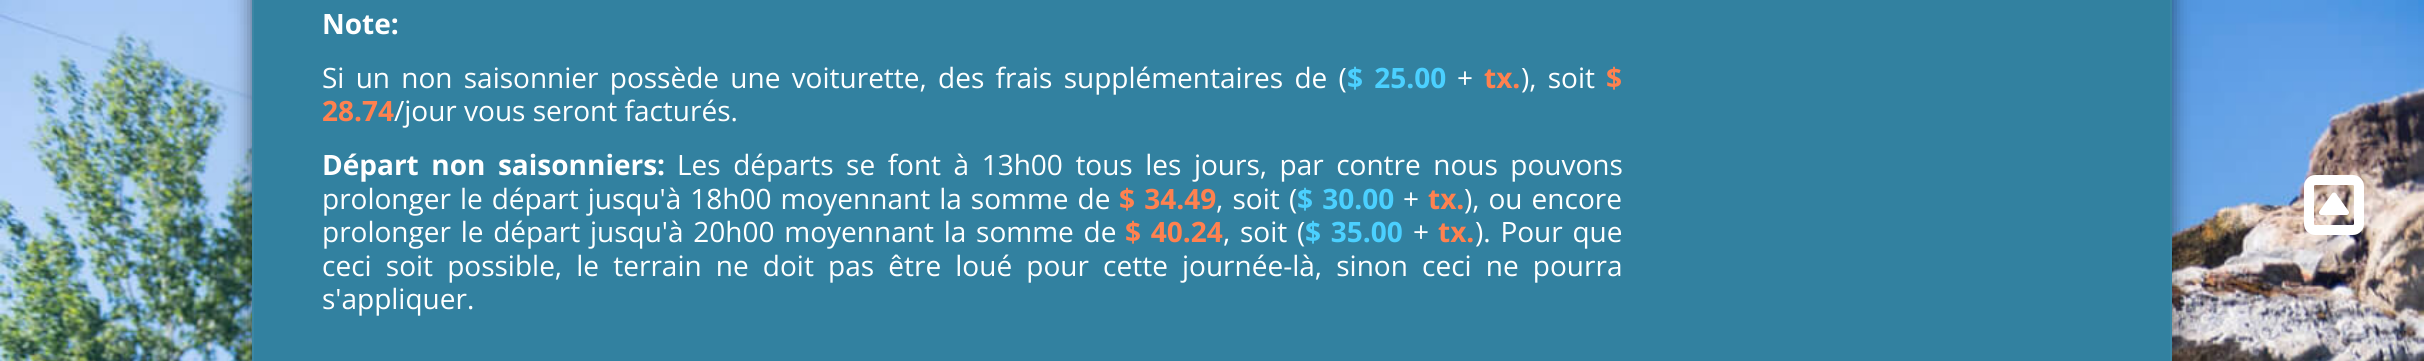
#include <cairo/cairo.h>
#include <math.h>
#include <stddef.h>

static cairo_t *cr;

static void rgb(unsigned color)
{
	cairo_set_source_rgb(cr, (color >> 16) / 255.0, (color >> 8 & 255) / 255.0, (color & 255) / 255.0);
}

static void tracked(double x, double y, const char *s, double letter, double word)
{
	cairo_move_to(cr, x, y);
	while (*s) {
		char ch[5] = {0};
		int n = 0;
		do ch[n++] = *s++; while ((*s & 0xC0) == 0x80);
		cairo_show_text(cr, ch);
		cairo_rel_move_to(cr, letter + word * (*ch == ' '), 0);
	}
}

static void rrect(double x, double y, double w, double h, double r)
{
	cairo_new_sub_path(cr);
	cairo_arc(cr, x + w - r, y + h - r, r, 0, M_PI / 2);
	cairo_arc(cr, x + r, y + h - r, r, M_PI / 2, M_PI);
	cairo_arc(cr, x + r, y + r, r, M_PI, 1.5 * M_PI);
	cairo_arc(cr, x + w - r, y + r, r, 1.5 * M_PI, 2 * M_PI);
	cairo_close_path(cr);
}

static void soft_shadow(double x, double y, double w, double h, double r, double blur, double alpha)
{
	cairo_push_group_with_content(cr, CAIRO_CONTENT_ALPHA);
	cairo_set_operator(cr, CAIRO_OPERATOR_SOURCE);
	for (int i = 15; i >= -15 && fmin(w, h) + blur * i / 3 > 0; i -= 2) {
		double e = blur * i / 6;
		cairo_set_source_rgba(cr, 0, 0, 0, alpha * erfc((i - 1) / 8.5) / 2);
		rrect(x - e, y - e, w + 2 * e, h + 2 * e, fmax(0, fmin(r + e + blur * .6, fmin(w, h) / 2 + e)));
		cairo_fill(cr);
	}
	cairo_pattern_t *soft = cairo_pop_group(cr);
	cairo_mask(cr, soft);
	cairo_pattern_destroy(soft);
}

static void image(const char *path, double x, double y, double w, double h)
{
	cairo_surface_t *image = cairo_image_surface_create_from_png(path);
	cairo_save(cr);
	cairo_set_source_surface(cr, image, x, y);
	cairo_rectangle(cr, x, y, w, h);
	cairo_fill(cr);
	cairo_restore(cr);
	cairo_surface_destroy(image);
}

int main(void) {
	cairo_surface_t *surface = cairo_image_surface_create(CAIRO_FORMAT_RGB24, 2424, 361);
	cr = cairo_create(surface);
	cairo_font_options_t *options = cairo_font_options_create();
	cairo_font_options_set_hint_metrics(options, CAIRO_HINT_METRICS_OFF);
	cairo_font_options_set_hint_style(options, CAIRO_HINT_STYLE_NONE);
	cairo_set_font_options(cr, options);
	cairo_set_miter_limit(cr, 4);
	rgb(0xffffff);
	cairo_paint(cr);
	image("img/1.png", 0, 0, 2424, 361);
	rgb(0x000000);
	soft_shadow(252, -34, 1920, 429, 4, 10, 0.5);
	rgb(0x3281a0);
	cairo_rectangle(cr, 254, 0, 1916, 361);
	cairo_fill(cr);
	rgb(0x3c87a5);
	cairo_new_path(cr);
	cairo_move_to(cr, 2166, 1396);
	cairo_curve_to(cr, 2169, 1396, 2172, 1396, 2172, 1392);
	cairo_line_to(cr, 2172, -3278);
	cairo_curve_to(cr, 2172, -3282, 2169, -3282, 2166, -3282);
	cairo_curve_to(cr, 2168, -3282, 2170, -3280, 2170, -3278);
	cairo_line_to(cr, 2170, 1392);
	cairo_curve_to(cr, 2170, 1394, 2168, 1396, 2166, 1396);
	cairo_close_path(cr);
	cairo_fill(cr);
	cairo_new_path(cr);
	cairo_move_to(cr, 256, -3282);
	cairo_curve_to(cr, 254, -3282, 252, -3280, 252, -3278);
	cairo_line_to(cr, 252, 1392);
	cairo_curve_to(cr, 252, 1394, 254, 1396, 256, 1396);
	cairo_line_to(cr, 258, 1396);
	cairo_curve_to(cr, 256, 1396, 254, 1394, 254, 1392);
	cairo_line_to(cr, 254, -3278);
	cairo_curve_to(cr, 254, -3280, 256, -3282, 258, -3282);
	cairo_close_path(cr);
	cairo_fill(cr);
	image("img/2.png", 2304, 175, 60, 60);
	cairo_select_font_face(cr, "Open Sans", CAIRO_FONT_SLANT_NORMAL, CAIRO_FONT_WEIGHT_BOLD);
	cairo_set_font_size(cr, 28);
	rgb(0xffffff);
	cairo_move_to(cr, 322, 34);
	cairo_show_text(cr, "Note:");
	cairo_select_font_face(cr, "Open Sans", CAIRO_FONT_SLANT_NORMAL, CAIRO_FONT_WEIGHT_NORMAL);
	tracked(322, 88, "Si un non saisonnier possède une voiturette, des frais supplémentaires de (", 0, 4);
	cairo_select_font_face(cr, "Open Sans", CAIRO_FONT_SLANT_NORMAL, CAIRO_FONT_WEIGHT_BOLD);
	rgb(0x4bd0ff);
	tracked(1347, 88, "$ 25.00", 0, 4);
	cairo_select_font_face(cr, "Open Sans", CAIRO_FONT_SLANT_NORMAL, CAIRO_FONT_WEIGHT_NORMAL);
	rgb(0xffffff);
	cairo_move_to(cr, 1457, 88);
	cairo_show_text(cr, "+");
	cairo_select_font_face(cr, "Open Sans", CAIRO_FONT_SLANT_NORMAL, CAIRO_FONT_WEIGHT_BOLD);
	rgb(0xff814f);
	cairo_move_to(cr, 1484, 88);
	cairo_show_text(cr, "tx.");
	cairo_select_font_face(cr, "Open Sans", CAIRO_FONT_SLANT_NORMAL, CAIRO_FONT_WEIGHT_NORMAL);
	rgb(0xffffff);
	tracked(1521, 88, "), soit", 0, 4);
	cairo_select_font_face(cr, "Open Sans", CAIRO_FONT_SLANT_NORMAL, CAIRO_FONT_WEIGHT_BOLD);
	rgb(0xff814f);
	cairo_move_to(cr, 1606, 88);
	cairo_show_text(cr, "$");
	cairo_move_to(cr, 322, 121);
	cairo_show_text(cr, "28.74");
	cairo_select_font_face(cr, "Open Sans", CAIRO_FONT_SLANT_NORMAL, CAIRO_FONT_WEIGHT_NORMAL);
	rgb(0xffffff);
	cairo_move_to(cr, 394, 121);
	cairo_show_text(cr, "/jour vous seront facturés.");
	cairo_select_font_face(cr, "Open Sans", CAIRO_FONT_SLANT_NORMAL, CAIRO_FONT_WEIGHT_BOLD);
	tracked(322, 175, "Départ non saisonniers:", 0, 5.25);
	cairo_select_font_face(cr, "Open Sans", CAIRO_FONT_SLANT_NORMAL, CAIRO_FONT_WEIGHT_NORMAL);
	tracked(677, 175, "Les départs se font à 13h00 tous les jours, par contre nous pouvons", 0, 5.25);
	tracked(322, 209, "prolonger le départ jusqu'à 18h00 moyennant la somme de", 0, 1.75);
	cairo_select_font_face(cr, "Open Sans", CAIRO_FONT_SLANT_NORMAL, CAIRO_FONT_WEIGHT_BOLD);
	rgb(0xff814f);
	tracked(1119, 209, "$ 34.49", 0, 2);
	cairo_select_font_face(cr, "Open Sans", CAIRO_FONT_SLANT_NORMAL, CAIRO_FONT_WEIGHT_NORMAL);
	rgb(0xffffff);
	tracked(1216, 209, ", soit (", 0, 2);
	cairo_select_font_face(cr, "Open Sans", CAIRO_FONT_SLANT_NORMAL, CAIRO_FONT_WEIGHT_BOLD);
	rgb(0x4bd0ff);
	tracked(1297, 209, "$ 30.00", 0, 2);
	cairo_select_font_face(cr, "Open Sans", CAIRO_FONT_SLANT_NORMAL, CAIRO_FONT_WEIGHT_NORMAL);
	rgb(0xffffff);
	cairo_move_to(cr, 1403, 209);
	cairo_show_text(cr, "+");
	cairo_select_font_face(cr, "Open Sans", CAIRO_FONT_SLANT_NORMAL, CAIRO_FONT_WEIGHT_BOLD);
	rgb(0xff814f);
	cairo_move_to(cr, 1428, 209);
	cairo_show_text(cr, "tx.");
	cairo_select_font_face(cr, "Open Sans", CAIRO_FONT_SLANT_NORMAL, CAIRO_FONT_WEIGHT_NORMAL);
	rgb(0xffffff);
	tracked(1464, 209, "), ou encore", 0, 1.75);
	tracked(322, 242, "prolonger le départ jusqu'à 20h00 moyennant la somme de", 0, 2.5);
	cairo_select_font_face(cr, "Open Sans", CAIRO_FONT_SLANT_NORMAL, CAIRO_FONT_WEIGHT_BOLD);
	rgb(0xff814f);
	tracked(1125, 242, "$ 40.24", 0, 2.5);
	cairo_select_font_face(cr, "Open Sans", CAIRO_FONT_SLANT_NORMAL, CAIRO_FONT_WEIGHT_NORMAL);
	rgb(0xffffff);
	tracked(1223, 242, ", soit (", 0, 2.5);
	cairo_select_font_face(cr, "Open Sans", CAIRO_FONT_SLANT_NORMAL, CAIRO_FONT_WEIGHT_BOLD);
	rgb(0x4bd0ff);
	tracked(1305, 242, "$ 35.00", 0, 2.5);
	cairo_select_font_face(cr, "Open Sans", CAIRO_FONT_SLANT_NORMAL, CAIRO_FONT_WEIGHT_NORMAL);
	rgb(0xffffff);
	cairo_move_to(cr, 1413, 242);
	cairo_show_text(cr, "+");
	cairo_select_font_face(cr, "Open Sans", CAIRO_FONT_SLANT_NORMAL, CAIRO_FONT_WEIGHT_BOLD);
	rgb(0xff814f);
	cairo_move_to(cr, 1438, 242);
	cairo_show_text(cr, "tx.");
	cairo_select_font_face(cr, "Open Sans", CAIRO_FONT_SLANT_NORMAL, CAIRO_FONT_WEIGHT_NORMAL);
	rgb(0xffffff);
	tracked(1475, 242, "). Pour que", 0, 2.5);
	tracked(322, 276, "ceci soit possible, le terrain ne doit pas être loué pour cette journée-là, sinon ceci ne pourra", 0, 6.9);
	cairo_move_to(cr, 322, 309);
	cairo_show_text(cr, "s'appliquer.");
	cairo_surface_write_to_png(surface, "page.png");
	cairo_font_options_destroy(options);
	cairo_destroy(cr);
	cairo_surface_destroy(surface);
	return 0;
}
